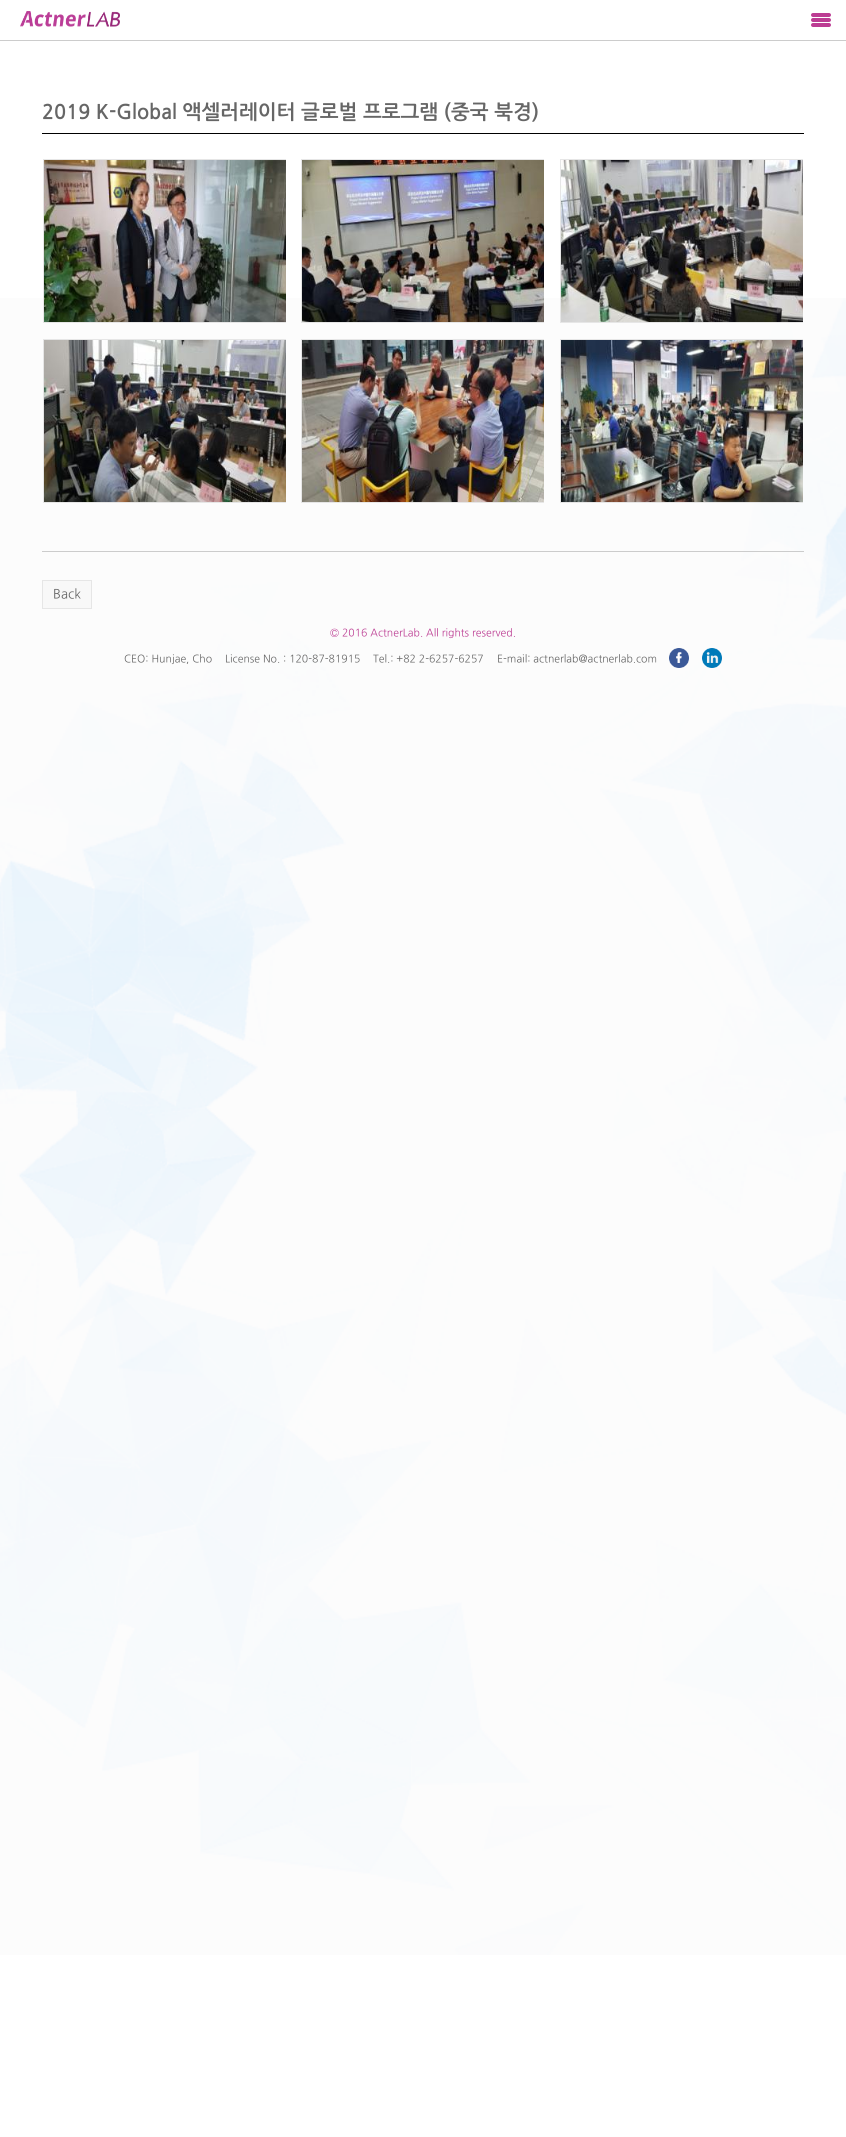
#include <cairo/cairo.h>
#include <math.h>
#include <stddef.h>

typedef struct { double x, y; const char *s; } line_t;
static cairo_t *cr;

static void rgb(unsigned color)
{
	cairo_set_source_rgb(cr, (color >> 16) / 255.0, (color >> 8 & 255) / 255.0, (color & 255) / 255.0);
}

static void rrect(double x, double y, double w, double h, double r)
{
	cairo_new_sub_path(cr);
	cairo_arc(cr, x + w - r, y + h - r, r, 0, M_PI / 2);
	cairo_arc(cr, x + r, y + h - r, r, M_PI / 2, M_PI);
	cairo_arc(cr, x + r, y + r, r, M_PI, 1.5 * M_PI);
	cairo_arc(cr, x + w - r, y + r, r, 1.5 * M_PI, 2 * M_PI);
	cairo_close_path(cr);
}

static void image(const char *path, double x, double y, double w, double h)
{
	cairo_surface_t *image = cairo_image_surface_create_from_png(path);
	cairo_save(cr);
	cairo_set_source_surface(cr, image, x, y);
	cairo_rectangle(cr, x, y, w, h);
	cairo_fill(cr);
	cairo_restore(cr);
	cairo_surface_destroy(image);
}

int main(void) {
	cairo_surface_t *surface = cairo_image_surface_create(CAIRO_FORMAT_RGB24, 846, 2137);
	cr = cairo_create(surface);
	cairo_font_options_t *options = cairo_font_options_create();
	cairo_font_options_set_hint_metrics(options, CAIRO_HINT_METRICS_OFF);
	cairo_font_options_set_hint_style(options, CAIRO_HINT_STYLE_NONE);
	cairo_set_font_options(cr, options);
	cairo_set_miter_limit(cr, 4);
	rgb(0xffffff);
	cairo_paint(cr);
	image("img/1.png", 0, 298, 846, 1657);
	rgb(0xcccccc);
	cairo_rectangle(cr, 0, 40, 846, 1);
	cairo_fill(cr);
	image("img/2.png", 20, 11, 100, 16);
	rgb(0xbc3c93);
	rrect(811, 13, 20, 4, 2);
	cairo_fill(cr);
	rrect(811, 18, 20, 4, 2);
	cairo_fill(cr);
	rrect(811, 23, 20, 4, 2);
	cairo_fill(cr);
	rgb(0x000000);
	cairo_rectangle(cr, 42, 133, 762, 1);
	cairo_fill(cr);
	rgb(0xcccccc);
	cairo_rectangle(cr, 42, 551, 762, 1);
	cairo_fill(cr);
	cairo_save(cr);
	cairo_rectangle(cr, 43, 159, 243, 164);
	cairo_clip(cr);
	cairo_rectangle(cr, 43.5, 159.5, 244, 163);
	rgb(0xe6e6e6);
	cairo_set_line_width(cr, 1);
	cairo_stroke(cr);
	cairo_restore(cr);
	image("img/3.png", 44, 160, 242, 162);
	cairo_save(cr);
	cairo_rectangle(cr, 301, 159, 243, 164);
	cairo_clip(cr);
	cairo_rectangle(cr, 301.5, 159.5, 244, 163);
	rgb(0xe6e6e6);
	cairo_set_line_width(cr, 1);
	cairo_stroke(cr);
	cairo_restore(cr);
	image("img/4.png", 302, 160, 242, 162);
	cairo_save(cr);
	cairo_rectangle(cr, 560, 159, 243, 164);
	cairo_clip(cr);
	cairo_rectangle(cr, 560.5, 159.5, 244, 163);
	rgb(0xe6e6e6);
	cairo_set_line_width(cr, 1);
	cairo_stroke(cr);
	cairo_restore(cr);
	image("img/5.png", 561, 160, 242, 162);
	cairo_save(cr);
	cairo_rectangle(cr, 43, 339, 243, 164);
	cairo_clip(cr);
	cairo_rectangle(cr, 43.5, 339.5, 244, 163);
	rgb(0xe6e6e6);
	cairo_set_line_width(cr, 1);
	cairo_stroke(cr);
	cairo_restore(cr);
	image("img/6.png", 44, 340, 242, 162);
	cairo_save(cr);
	cairo_rectangle(cr, 301, 339, 243, 164);
	cairo_clip(cr);
	cairo_rectangle(cr, 301.5, 339.5, 244, 163);
	rgb(0xe6e6e6);
	cairo_set_line_width(cr, 1);
	cairo_stroke(cr);
	cairo_restore(cr);
	image("img/7.png", 302, 340, 242, 162);
	cairo_save(cr);
	cairo_rectangle(cr, 560, 339, 243, 164);
	cairo_clip(cr);
	cairo_rectangle(cr, 560.5, 339.5, 244, 163);
	rgb(0xe6e6e6);
	cairo_set_line_width(cr, 1);
	cairo_stroke(cr);
	cairo_restore(cr);
	image("img/8.png", 561, 340, 242, 162);
	rgb(0xf8f8f8);
	cairo_rectangle(cr, 42.5, 580.5, 49, 28);
	cairo_fill_preserve(cr);
	rgb(0xe6e6e6);
	cairo_set_line_width(cr, 1);
	cairo_stroke(cr);
	image("img/9.png", 669, 648, 20, 20);
	image("img/10.png", 702, 648, 20, 20);
	cairo_select_font_face(cr, "NanumGothic", CAIRO_FONT_SLANT_NORMAL, CAIRO_FONT_WEIGHT_BOLD);
	cairo_set_font_size(cr, 20);
	rgb(0x666666);
	cairo_move_to(cr, 42, 118);
	cairo_show_text(cr, "2019 K-Global 액셀러레이터 글로벌 프로그램 (중국 북경)");
	cairo_select_font_face(cr, "NanumGothic", CAIRO_FONT_SLANT_NORMAL, CAIRO_FONT_WEIGHT_NORMAL);
	cairo_set_font_size(cr, 13);
	cairo_move_to(cr, 53, 598);
	cairo_show_text(cr, "Back");
	cairo_set_font_size(cr, 10.5);
	rgb(0xbc3d93);
	cairo_move_to(cr, 330, 636);
	cairo_show_text(cr, "© 2016 ActnerLab. All rights reserved.");
	rgb(0x666666);
	{
		static const line_t items[] = {
			{124, 662, "CEO: Hunjae, Cho"},
			{225, 662, "License No. : 120-87-81915"},
			{373, 662, "Tel.: +82 2-6257-6257"},
			{497, 662, "E-mail: actnerlab@actnerlab.com"},
		};
		for (size_t i = 0; i < sizeof items / sizeof *items; i++) {
			cairo_move_to(cr, items[i].x, items[i].y);
			cairo_show_text(cr, items[i].s);
		}
	}
	cairo_surface_write_to_png(surface, "page.png");
	cairo_font_options_destroy(options);
	cairo_destroy(cr);
	cairo_surface_destroy(surface);
	return 0;
}
